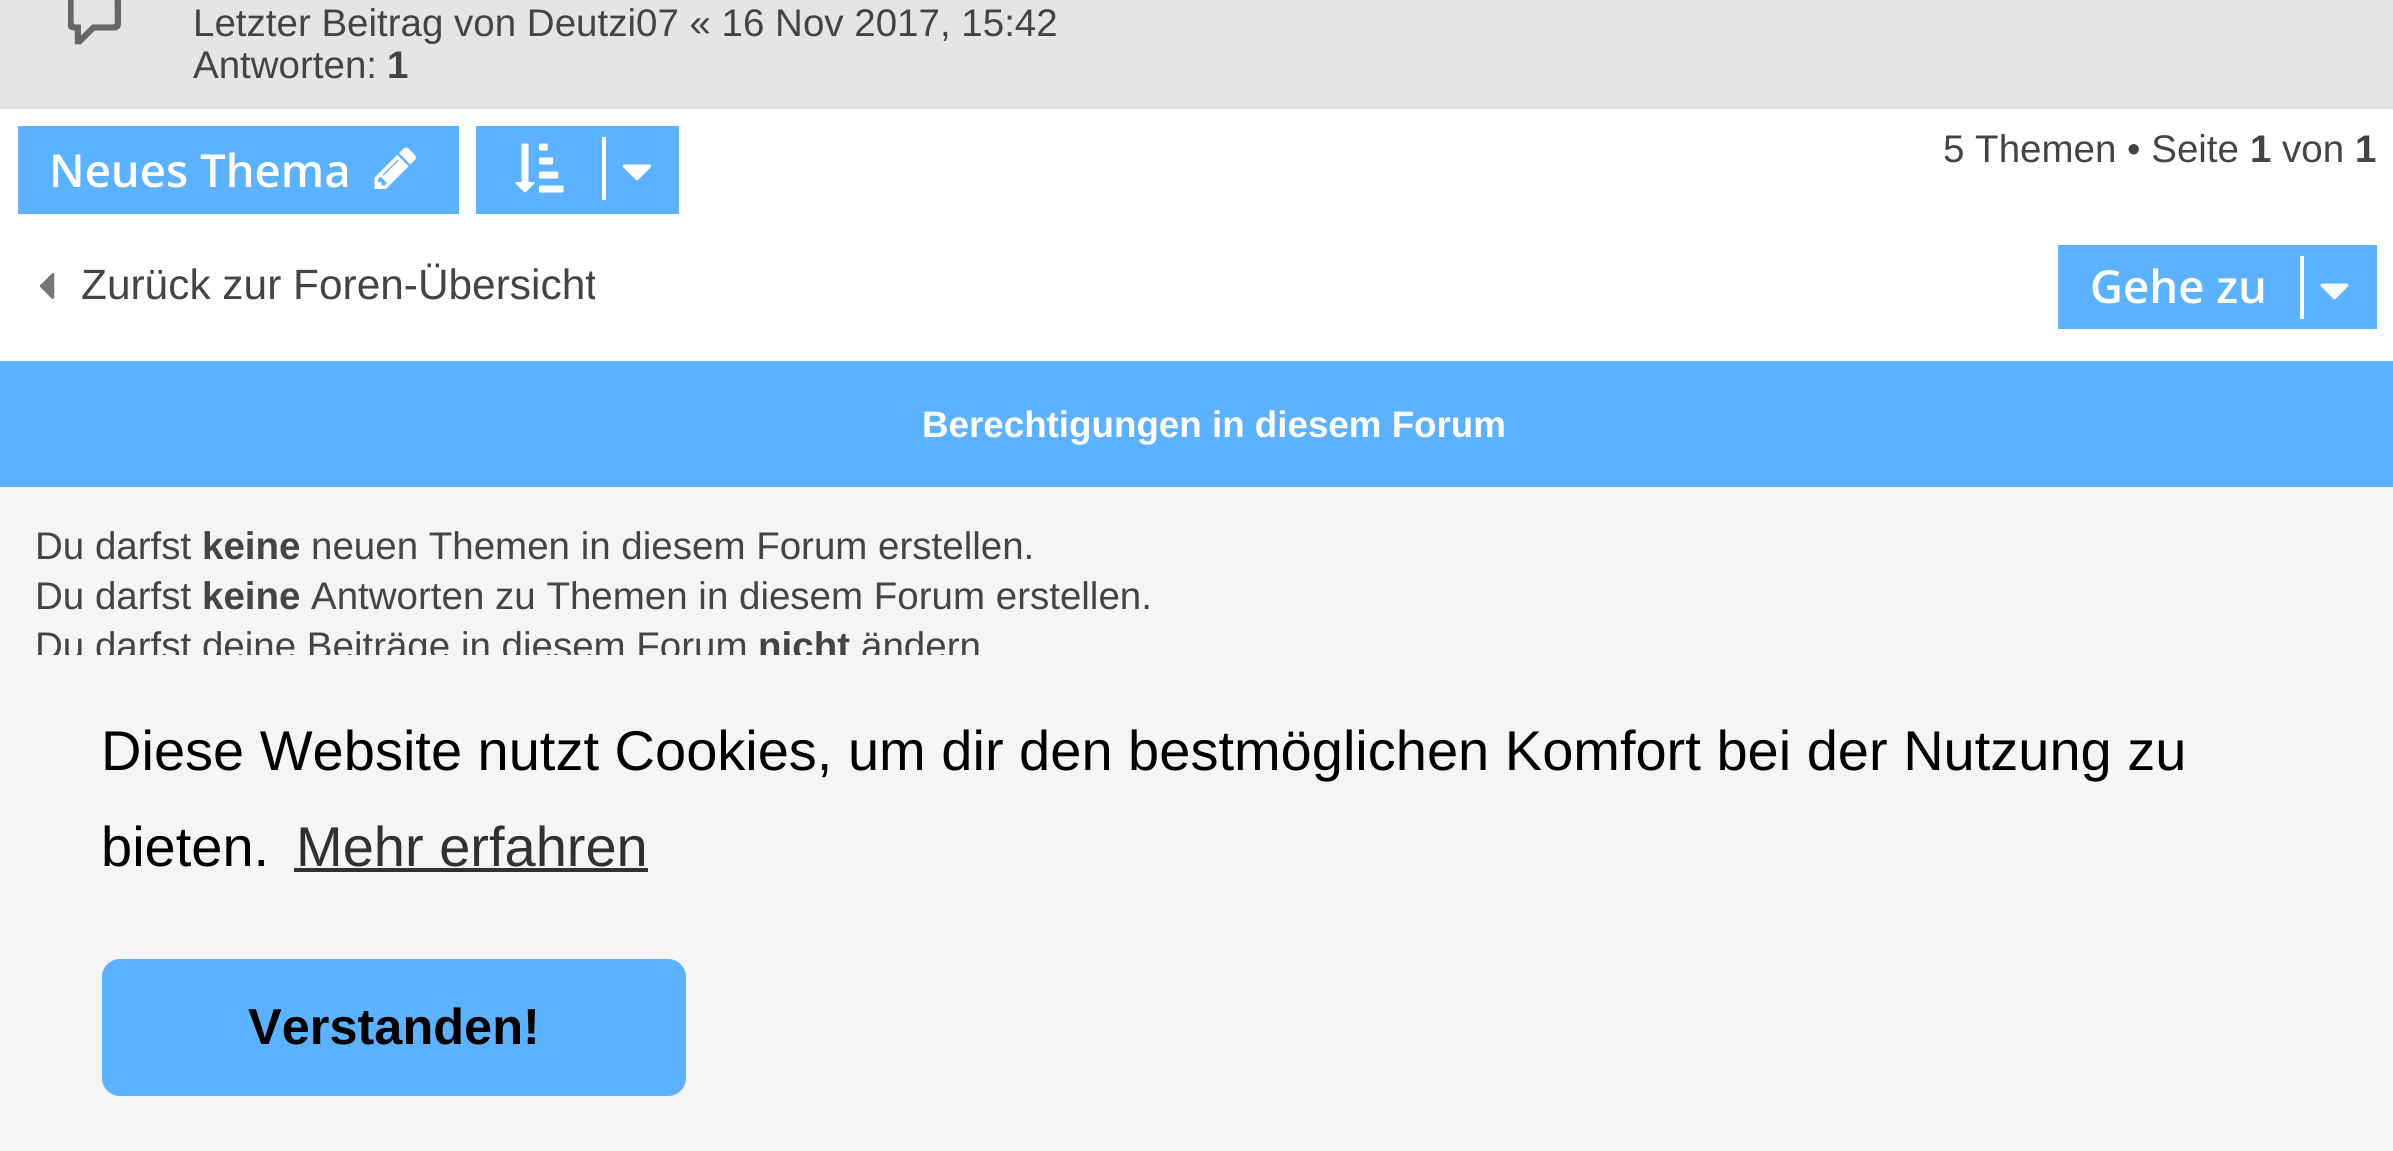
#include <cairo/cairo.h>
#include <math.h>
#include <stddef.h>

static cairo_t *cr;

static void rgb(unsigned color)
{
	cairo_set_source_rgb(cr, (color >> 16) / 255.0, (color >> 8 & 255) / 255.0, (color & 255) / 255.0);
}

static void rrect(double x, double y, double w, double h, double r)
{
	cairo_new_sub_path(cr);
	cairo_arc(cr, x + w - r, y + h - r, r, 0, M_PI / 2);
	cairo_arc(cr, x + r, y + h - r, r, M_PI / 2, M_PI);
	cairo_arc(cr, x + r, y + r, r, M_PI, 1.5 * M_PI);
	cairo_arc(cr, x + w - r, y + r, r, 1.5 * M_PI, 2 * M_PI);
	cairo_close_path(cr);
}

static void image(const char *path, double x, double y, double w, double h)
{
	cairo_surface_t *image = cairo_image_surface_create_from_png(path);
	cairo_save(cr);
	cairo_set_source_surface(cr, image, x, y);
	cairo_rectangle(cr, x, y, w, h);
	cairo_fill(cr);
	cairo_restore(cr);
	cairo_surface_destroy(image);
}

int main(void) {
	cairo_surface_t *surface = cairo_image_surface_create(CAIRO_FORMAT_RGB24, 2393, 1151);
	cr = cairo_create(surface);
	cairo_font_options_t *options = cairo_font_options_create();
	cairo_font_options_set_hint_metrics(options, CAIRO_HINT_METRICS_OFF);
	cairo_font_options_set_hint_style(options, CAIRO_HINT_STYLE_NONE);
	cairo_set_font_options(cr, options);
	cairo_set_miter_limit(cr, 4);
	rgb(0xffffff);
	cairo_paint(cr);
	rgb(0xe5e5e5);
	cairo_rectangle(cr, 0, 0, 2393, 109);
	cairo_fill(cr);
	image("img/1.png", 67, 0, 55, 45);
	rgb(0x5db2ff);
	cairo_rectangle(cr, 476, 126, 203, 88);
	cairo_fill(cr);
	image("img/2.png", 515, 143, 49, 50);
	rgb(0xffffff);
	cairo_rectangle(cr, 602, 137, 4, 63);
	cairo_fill(cr);
	image("img/3.png", 623, 164, 28, 17);
	rgb(0x5db2ff);
	cairo_rectangle(cr, 18, 126, 441, 88);
	cairo_fill(cr);
	image("img/4.png", 374, 147, 42, 42);
	image("img/5.png", 39, 273, 16, 26);
	cairo_rectangle(cr, 2058, 245, 319, 84);
	cairo_fill(cr);
	rgb(0xffffff);
	cairo_rectangle(cr, 2300, 256, 4, 63);
	cairo_fill(cr);
	image("img/6.png", 2320, 283, 29, 17);
	rgb(0x5db2ff);
	cairo_rectangle(cr, 0, 361, 2393, 126);
	cairo_fill(cr);
	rgb(0xf5f5f5);
	cairo_rectangle(cr, 0, 487, 2393, 168);
	cairo_fill(cr);
	cairo_select_font_face(cr, "Liberation Sans", CAIRO_FONT_SLANT_NORMAL, CAIRO_FONT_WEIGHT_NORMAL);
	cairo_set_font_size(cr, 38.5);
	rgb(0x444444);
	cairo_move_to(cr, 193, 36);
	cairo_show_text(cr, "Letzter Beitrag von Deutzi07 « 16 Nov 2017, 15:42");
	cairo_move_to(cr, 193, 78);
	cairo_show_text(cr, "Antworten:");
	cairo_select_font_face(cr, "Liberation Sans", CAIRO_FONT_SLANT_NORMAL, CAIRO_FONT_WEIGHT_BOLD);
	cairo_move_to(cr, 387, 78);
	cairo_show_text(cr, "1");
	cairo_select_font_face(cr, "Liberation Sans", CAIRO_FONT_SLANT_NORMAL, CAIRO_FONT_WEIGHT_NORMAL);
	cairo_move_to(cr, 1943, 162);
	cairo_show_text(cr, "5 Themen • Seite");
	cairo_select_font_face(cr, "Liberation Sans", CAIRO_FONT_SLANT_NORMAL, CAIRO_FONT_WEIGHT_BOLD);
	cairo_move_to(cr, 2250, 162);
	cairo_show_text(cr, "1");
	cairo_select_font_face(cr, "Liberation Sans", CAIRO_FONT_SLANT_NORMAL, CAIRO_FONT_WEIGHT_NORMAL);
	cairo_move_to(cr, 2282, 162);
	cairo_show_text(cr, "von");
	cairo_select_font_face(cr, "Liberation Sans", CAIRO_FONT_SLANT_NORMAL, CAIRO_FONT_WEIGHT_BOLD);
	cairo_move_to(cr, 2355, 162);
	cairo_show_text(cr, "1");
	cairo_select_font_face(cr, "Open Sans SemiBold", CAIRO_FONT_SLANT_NORMAL, CAIRO_FONT_WEIGHT_NORMAL);
	cairo_set_font_size(cr, 45.5);
	rgb(0xffffff);
	cairo_move_to(cr, 49, 187);
	cairo_show_text(cr, "Neues Thema");
	cairo_save(cr);
	cairo_rectangle(cr, 18, 263, 577, 52);
	cairo_clip(cr);
	cairo_select_font_face(cr, "Liberation Sans", CAIRO_FONT_SLANT_NORMAL, CAIRO_FONT_WEIGHT_NORMAL);
	cairo_set_font_size(cr, 42.4);
	rgb(0x444444);
	cairo_move_to(cr, 81, 299);
	cairo_show_text(cr, "Zurück zur Foren-Übersicht");
	cairo_restore(cr);
	cairo_move_to(cr, 2090, 303);
	cairo_show_text(cr, "Gehe zu");
	cairo_select_font_face(cr, "Liberation Sans", CAIRO_FONT_SLANT_NORMAL, CAIRO_FONT_WEIGHT_BOLD);
	cairo_set_font_size(cr, 36.75);
	cairo_move_to(cr, 922, 437);
	cairo_show_text(cr, "Berechtigungen in diesem Forum");
	cairo_select_font_face(cr, "Liberation Sans", CAIRO_FONT_SLANT_NORMAL, CAIRO_FONT_WEIGHT_NORMAL);
	cairo_set_font_size(cr, 38.5);
	rgb(0x444444);
	cairo_move_to(cr, 35, 559);
	cairo_show_text(cr, "Du darfst");
	cairo_select_font_face(cr, "Liberation Sans", CAIRO_FONT_SLANT_NORMAL, CAIRO_FONT_WEIGHT_BOLD);
	cairo_move_to(cr, 202, 559);
	cairo_show_text(cr, "keine");
	cairo_select_font_face(cr, "Liberation Sans", CAIRO_FONT_SLANT_NORMAL, CAIRO_FONT_WEIGHT_NORMAL);
	cairo_move_to(cr, 311, 559);
	cairo_show_text(cr, "neuen Themen in diesem Forum erstellen.");
	cairo_move_to(cr, 35, 609);
	cairo_show_text(cr, "Du darfst");
	cairo_select_font_face(cr, "Liberation Sans", CAIRO_FONT_SLANT_NORMAL, CAIRO_FONT_WEIGHT_BOLD);
	cairo_move_to(cr, 202, 609);
	cairo_show_text(cr, "keine");
	cairo_select_font_face(cr, "Liberation Sans", CAIRO_FONT_SLANT_NORMAL, CAIRO_FONT_WEIGHT_NORMAL);
	cairo_move_to(cr, 311, 609);
	cairo_show_text(cr, "Antworten zu Themen in diesem Forum erstellen.");
	cairo_move_to(cr, 35, 659);
	cairo_show_text(cr, "Du darfst deine Beiträge in diesem Forum");
	cairo_select_font_face(cr, "Liberation Sans", CAIRO_FONT_SLANT_NORMAL, CAIRO_FONT_WEIGHT_BOLD);
	cairo_move_to(cr, 758, 659);
	cairo_show_text(cr, "nicht");
	cairo_select_font_face(cr, "Liberation Sans", CAIRO_FONT_SLANT_NORMAL, CAIRO_FONT_WEIGHT_NORMAL);
	cairo_move_to(cr, 861, 659);
	cairo_show_text(cr, "ändern");
	rgb(0xf5f5f5);
	cairo_rectangle(cr, 0, 655, 2393, 496);
	cairo_fill(cr);
	cairo_set_font_size(cr, 56);
	rgb(0x000000);
	cairo_move_to(cr, 101, 770);
	cairo_show_text(cr, "Diese Website nutzt Cookies, um dir den bestmöglichen Komfort bei der Nutzung zu");
	cairo_move_to(cr, 101, 866);
	cairo_show_text(cr, "bieten.");
	rgb(0x313131);
	cairo_move_to(cr, 296, 866);
	cairo_show_text(cr, "Mehr erfahren");
	cairo_rectangle(cr, 294, 868, 354, 4);
	cairo_fill(cr);
	rgb(0x5db2ff);
	rrect(102, 959, 584, 137, 18);
	cairo_fill(cr);
	cairo_select_font_face(cr, "Liberation Sans", CAIRO_FONT_SLANT_NORMAL, CAIRO_FONT_WEIGHT_BOLD);
	cairo_set_font_size(cr, 50.5);
	rgb(0x000000);
	cairo_move_to(cr, 248, 1044);
	cairo_show_text(cr, "Verstanden!");
	cairo_surface_write_to_png(surface, "page.png");
	cairo_font_options_destroy(options);
	cairo_destroy(cr);
	cairo_surface_destroy(surface);
	return 0;
}
